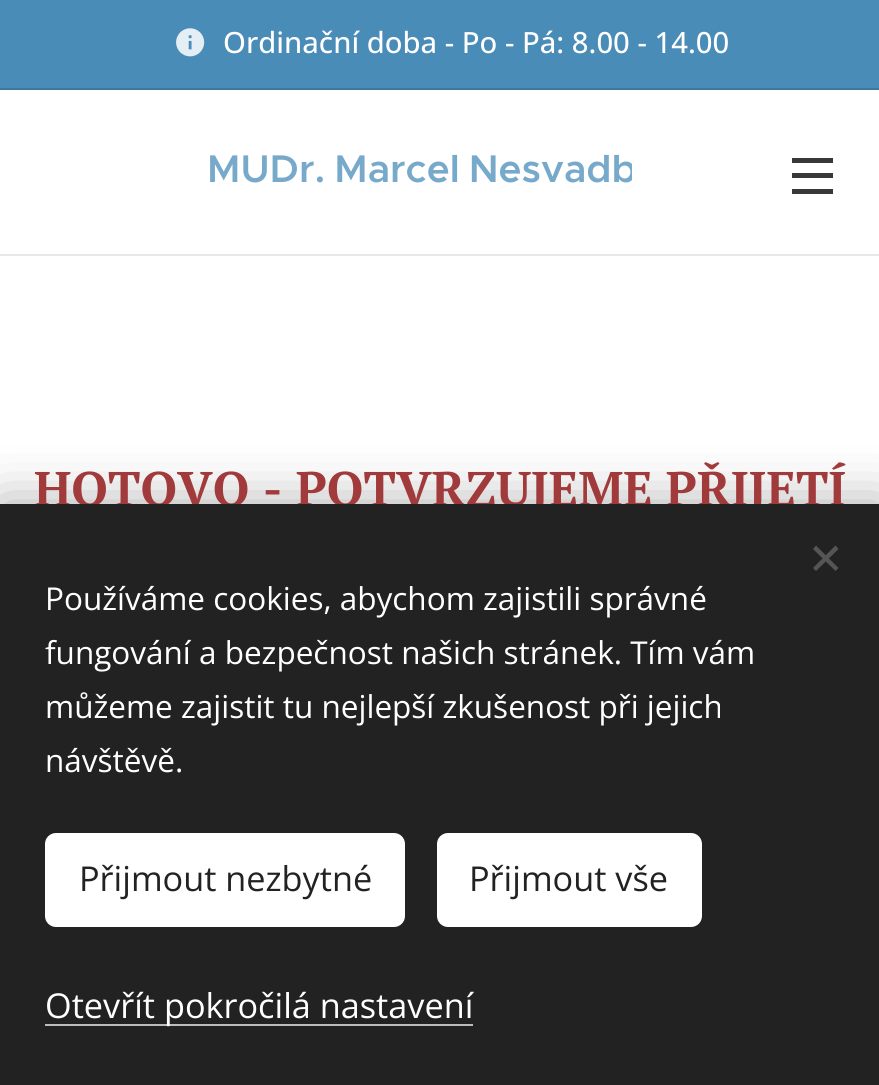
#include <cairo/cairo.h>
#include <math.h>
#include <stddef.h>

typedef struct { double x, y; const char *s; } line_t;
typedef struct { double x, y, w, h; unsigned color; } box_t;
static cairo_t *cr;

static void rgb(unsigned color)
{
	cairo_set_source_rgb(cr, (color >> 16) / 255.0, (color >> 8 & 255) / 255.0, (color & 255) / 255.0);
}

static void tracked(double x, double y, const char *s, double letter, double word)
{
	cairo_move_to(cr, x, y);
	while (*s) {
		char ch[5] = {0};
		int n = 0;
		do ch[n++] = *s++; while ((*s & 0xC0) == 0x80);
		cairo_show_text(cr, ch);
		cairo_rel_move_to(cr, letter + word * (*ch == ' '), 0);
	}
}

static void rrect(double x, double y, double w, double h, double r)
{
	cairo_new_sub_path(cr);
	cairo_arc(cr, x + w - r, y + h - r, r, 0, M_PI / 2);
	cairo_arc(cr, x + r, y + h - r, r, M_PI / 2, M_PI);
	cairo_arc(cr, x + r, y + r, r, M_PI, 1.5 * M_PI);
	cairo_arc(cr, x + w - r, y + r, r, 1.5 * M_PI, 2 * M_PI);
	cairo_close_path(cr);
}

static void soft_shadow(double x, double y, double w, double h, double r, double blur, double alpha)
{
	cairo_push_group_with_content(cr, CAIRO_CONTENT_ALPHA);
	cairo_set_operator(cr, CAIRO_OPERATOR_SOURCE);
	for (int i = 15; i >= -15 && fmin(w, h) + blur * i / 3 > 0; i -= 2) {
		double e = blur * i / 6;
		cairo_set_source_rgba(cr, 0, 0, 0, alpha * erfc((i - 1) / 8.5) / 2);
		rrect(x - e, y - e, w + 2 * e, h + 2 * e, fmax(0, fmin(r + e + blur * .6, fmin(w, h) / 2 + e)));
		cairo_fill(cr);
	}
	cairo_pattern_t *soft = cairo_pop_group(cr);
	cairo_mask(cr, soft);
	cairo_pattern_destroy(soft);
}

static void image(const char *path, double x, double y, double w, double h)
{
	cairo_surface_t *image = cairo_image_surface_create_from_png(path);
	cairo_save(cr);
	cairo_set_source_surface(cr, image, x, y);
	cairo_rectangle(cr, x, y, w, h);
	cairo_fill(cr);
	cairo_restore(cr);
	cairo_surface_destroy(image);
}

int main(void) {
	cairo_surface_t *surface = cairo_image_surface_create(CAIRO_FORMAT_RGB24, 879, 1085);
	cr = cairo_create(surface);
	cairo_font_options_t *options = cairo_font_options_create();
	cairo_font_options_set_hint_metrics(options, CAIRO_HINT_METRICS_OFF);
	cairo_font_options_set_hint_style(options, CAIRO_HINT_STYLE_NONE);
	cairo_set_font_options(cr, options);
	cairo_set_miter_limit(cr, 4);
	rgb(0xffffff);
	cairo_paint(cr);
	rgb(0x498cb8);
	cairo_rectangle(cr, 0, 0, 879, 88);
	cairo_fill(cr);
	image("img/1.png", 176, 28, 29, 29);
	{
		static const box_t items[] = {
			{0, 88, 879, 2, 0x3e779c},
			{792, 173, 41, 5, 0x393939},
			{792, 158, 41, 5, 0x393939},
			{792, 189, 41, 5, 0x393939},
			{0, 254, 879, 2, 0xe8e8e8},
		};
		for (size_t i = 0; i < sizeof items / sizeof *items; i++) {
			rgb(items[i].color);
			cairo_rectangle(cr, items[i].x, items[i].y, items[i].w, items[i].h);
			cairo_fill(cr);
		}
	}
	rgb(0x000000);
	soft_shadow(0, 504, 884, 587, 0, 28, 0.33);
	cairo_select_font_face(cr, "Open Sans Medium", CAIRO_FONT_SLANT_NORMAL, CAIRO_FONT_WEIGHT_NORMAL);
	cairo_set_font_size(cr, 29.25);
	rgb(0xffffff);
	cairo_move_to(cr, 223, 53);
	cairo_show_text(cr, "Ordinační doba - Po - Pá: 8.00 - 14.00");
	cairo_save(cr);
	cairo_rectangle(cr, 198, 144, 434, 59);
	cairo_clip(cr);
	cairo_select_font_face(cr, "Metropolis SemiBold", CAIRO_FONT_SLANT_NORMAL, CAIRO_FONT_WEIGHT_NORMAL);
	cairo_set_font_size(cr, 38.75);
	rgb(0x77a9ca);
	tracked(207, 182, "MUDr. Marcel Nesvadb", 0, -2);
	cairo_restore(cr);
	cairo_select_font_face(cr, "PT Serif", CAIRO_FONT_SLANT_NORMAL, CAIRO_FONT_WEIGHT_BOLD);
	cairo_set_font_size(cr, 48.6);
	rgb(0xa13a3b);
	cairo_move_to(cr, 34, 506);
	cairo_show_text(cr, "HOTOVO - POTVRZUJEME PŘIJETÍ");
	rgb(0x222222);
	cairo_rectangle(cr, 0, 504, 879, 581);
	cairo_fill(cr);
	rgb(0x555555);
	cairo_new_path(cr);
	cairo_move_to(cr, 813, 568);
	cairo_line_to(cr, 835.5, 545.5);
	cairo_line_to(cr, 838.5, 549);
	cairo_line_to(cr, 816, 571);
	cairo_close_path(cr);
	cairo_fill(cr);
	cairo_new_path(cr);
	cairo_move_to(cr, 816, 545.5);
	cairo_line_to(cr, 838.5, 568);
	cairo_line_to(cr, 835.5, 571);
	cairo_line_to(cr, 813, 549);
	cairo_close_path(cr);
	cairo_fill(cr);
	cairo_select_font_face(cr, "Open Sans", CAIRO_FONT_SLANT_NORMAL, CAIRO_FONT_WEIGHT_NORMAL);
	cairo_set_font_size(cr, 31.5);
	rgb(0xffffff);
	{
		static const line_t items[] = {
			{45, 610, "Používáme cookies, abychom zajistili správné"},
			{45, 664, "fungování a bezpečnost našich stránek. Tím vám"},
			{45, 718, "můžeme zajistit tu nejlepší zkušenost při jejich"},
			{45, 772, "návštěvě."},
		};
		for (size_t i = 0; i < sizeof items / sizeof *items; i++) {
			cairo_move_to(cr, items[i].x, items[i].y);
			cairo_show_text(cr, items[i].s);
		}
	}
	rrect(45, 833, 360, 94, 11);
	cairo_fill(cr);
	cairo_set_font_size(cr, 34.25);
	rgb(0x222222);
	cairo_move_to(cr, 79, 891);
	cairo_show_text(cr, "Přijmout nezbytné");
	rgb(0xffffff);
	rrect(437, 833, 265, 94, 11);
	cairo_fill(cr);
	rgb(0x222222);
	cairo_move_to(cr, 469, 891);
	cairo_show_text(cr, "Přijmout vše");
	rgb(0xbdbdbd);
	cairo_rectangle(cr, 45, 1024, 428, 2);
	cairo_fill(cr);
	rgb(0xffffff);
	cairo_move_to(cr, 45, 1018);
	cairo_show_text(cr, "Otevřít pokročilá nastavení");
	cairo_surface_write_to_png(surface, "page.png");
	cairo_font_options_destroy(options);
	cairo_destroy(cr);
	cairo_surface_destroy(surface);
	return 0;
}
